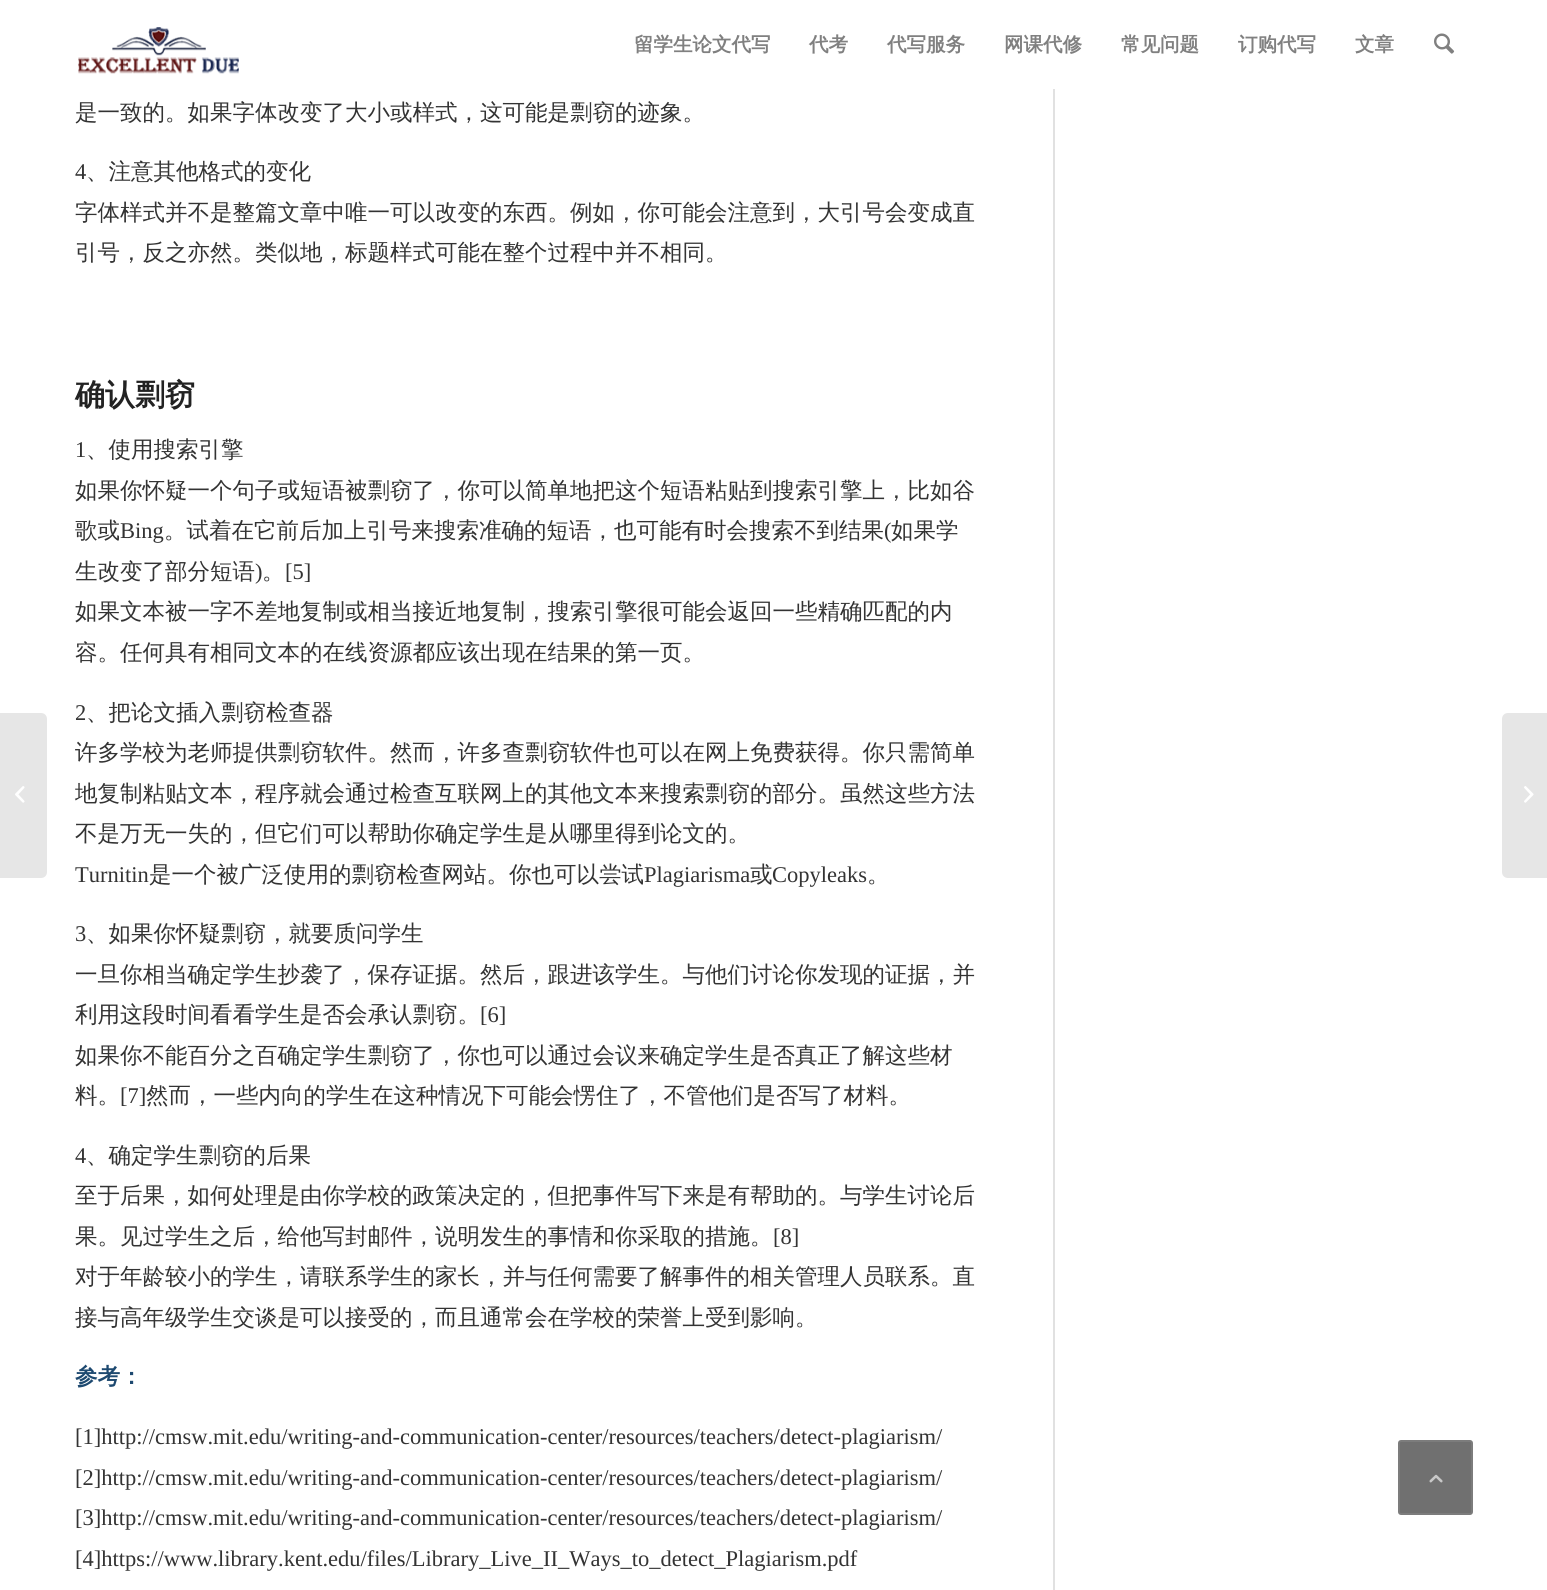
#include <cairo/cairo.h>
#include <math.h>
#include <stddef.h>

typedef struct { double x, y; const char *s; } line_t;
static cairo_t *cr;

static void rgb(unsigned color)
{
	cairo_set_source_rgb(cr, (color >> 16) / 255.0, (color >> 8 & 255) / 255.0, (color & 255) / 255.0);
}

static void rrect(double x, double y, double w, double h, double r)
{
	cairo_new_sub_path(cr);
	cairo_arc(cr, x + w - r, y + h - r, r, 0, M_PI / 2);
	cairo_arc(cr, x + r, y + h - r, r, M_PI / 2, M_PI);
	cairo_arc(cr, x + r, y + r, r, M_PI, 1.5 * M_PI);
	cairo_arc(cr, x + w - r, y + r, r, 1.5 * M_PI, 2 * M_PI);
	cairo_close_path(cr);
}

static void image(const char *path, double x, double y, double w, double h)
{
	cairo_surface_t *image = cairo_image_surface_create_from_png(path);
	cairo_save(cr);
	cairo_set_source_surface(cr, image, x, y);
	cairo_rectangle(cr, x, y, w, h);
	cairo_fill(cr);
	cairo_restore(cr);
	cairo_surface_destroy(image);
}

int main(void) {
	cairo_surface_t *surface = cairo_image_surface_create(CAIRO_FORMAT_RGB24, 1547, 1590);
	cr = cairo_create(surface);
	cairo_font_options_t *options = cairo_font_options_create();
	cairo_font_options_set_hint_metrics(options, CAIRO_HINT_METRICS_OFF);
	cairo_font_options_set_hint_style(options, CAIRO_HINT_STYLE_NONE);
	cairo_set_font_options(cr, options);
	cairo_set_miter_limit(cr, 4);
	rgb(0xffffff);
	cairo_paint(cr);
	image("img/1.png", 78, 27, 161, 47);
	image("img/2.png", 1434, 33, 21, 21);
	rgb(0xe6e6e6);
	cairo_new_path(cr);
	cairo_move_to(cr, 0, 713);
	cairo_line_to(cr, 41, 713);
	cairo_curve_to(cr, 44.5, 713, 47, 715.5, 47, 719);
	cairo_line_to(cr, 47, 872);
	cairo_curve_to(cr, 47, 875.5, 44.5, 878, 41, 878);
	cairo_line_to(cr, 0, 878);
	cairo_close_path(cr);
	cairo_fill(cr);
	image("img/3.png", 15, 786, 10, 17);
	rgb(0xe1e1e1);
	cairo_rectangle(cr, 1053, 89, 2, 1501);
	cairo_fill(cr);
	rgb(0xe6e6e6);
	cairo_new_path(cr);
	cairo_move_to(cr, 1508, 713);
	cairo_line_to(cr, 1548, 713);
	cairo_line_to(cr, 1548, 878);
	cairo_line_to(cr, 1508, 878);
	cairo_curve_to(cr, 1504.5, 878, 1502, 875.5, 1502, 872);
	cairo_line_to(cr, 1502, 719);
	cairo_curve_to(cr, 1502, 715.5, 1504.5, 713, 1508, 713);
	cairo_close_path(cr);
	cairo_fill(cr);
	image("img/4.png", 1524, 786, 10, 17);
	rgb(0x707070);
	rrect(1399, 1441, 73, 73, 2);
	cairo_fill_preserve(cr);
	rgb(0x7c7c7c);
	cairo_stroke(cr);
	image("img/5.png", 1429, 1474, 14, 9);
	cairo_select_font_face(cr, "WenQuanYi Zen Hei", CAIRO_FONT_SLANT_NORMAL, CAIRO_FONT_WEIGHT_BOLD);
	cairo_set_font_size(cr, 19.5);
	rgb(0x808080);
	{
		static const line_t items[] = {
			{634, 51, "留学生论文代写"},
			{809, 51, "代考"},
			{887, 51, "代写服务"},
			{1004, 51, "网课代修"},
			{1121, 51, "常见问题"},
			{1238, 51, "订购代写"},
			{1355, 51, "文章"},
		};
		for (size_t i = 0; i < sizeof items / sizeof *items; i++) {
			cairo_move_to(cr, items[i].x, items[i].y);
			cairo_show_text(cr, items[i].s);
		}
	}
	cairo_select_font_face(cr, "WenQuanYi Zen Hei Medium", CAIRO_FONT_SLANT_NORMAL, CAIRO_FONT_WEIGHT_NORMAL);
	cairo_set_font_size(cr, 22.5);
	rgb(0x333333);
	cairo_move_to(cr, 75, 120);
	cairo_show_text(cr, "是一致的。如果字体改变了大小或样式，这可能是剽窃的迹象。");
	cairo_select_font_face(cr, "Liberation Serif", CAIRO_FONT_SLANT_NORMAL, CAIRO_FONT_WEIGHT_NORMAL);
	cairo_move_to(cr, 75, 179);
	cairo_show_text(cr, "4");
	cairo_select_font_face(cr, "WenQuanYi Zen Hei Medium", CAIRO_FONT_SLANT_NORMAL, CAIRO_FONT_WEIGHT_NORMAL);
	{
		static const line_t items[] = {
			{86, 179, "、注意其他格式的变化"},
			{75, 220, "字体样式并不是整篇文章中唯一可以改变的东西。例如，你可能会注意到，大引号会变成直"},
			{75, 260, "引号，反之亦然。类似地，标题样式可能在整个过程中并不相同。"},
		};
		for (size_t i = 0; i < sizeof items / sizeof *items; i++) {
			cairo_move_to(cr, items[i].x, items[i].y);
			cairo_show_text(cr, items[i].s);
		}
	}
	cairo_select_font_face(cr, "WenQuanYi Zen Hei", CAIRO_FONT_SLANT_NORMAL, CAIRO_FONT_WEIGHT_BOLD);
	cairo_set_font_size(cr, 30);
	rgb(0x222222);
	cairo_move_to(cr, 75, 405);
	cairo_show_text(cr, "确认剽窃");
	cairo_select_font_face(cr, "Liberation Serif", CAIRO_FONT_SLANT_NORMAL, CAIRO_FONT_WEIGHT_NORMAL);
	cairo_set_font_size(cr, 22.5);
	rgb(0x333333);
	cairo_move_to(cr, 75, 457);
	cairo_show_text(cr, "1");
	cairo_select_font_face(cr, "WenQuanYi Zen Hei Medium", CAIRO_FONT_SLANT_NORMAL, CAIRO_FONT_WEIGHT_NORMAL);
	{
		static const line_t items[] = {
			{86, 457, "、使用搜索引擎"},
			{75, 498, "如果你怀疑一个句子或短语被剽窃了，你可以简单地把这个短语粘贴到搜索引擎上，比如谷"},
			{75, 538, "歌或"},
		};
		for (size_t i = 0; i < sizeof items / sizeof *items; i++) {
			cairo_move_to(cr, items[i].x, items[i].y);
			cairo_show_text(cr, items[i].s);
		}
	}
	cairo_select_font_face(cr, "Liberation Serif", CAIRO_FONT_SLANT_NORMAL, CAIRO_FONT_WEIGHT_NORMAL);
	cairo_move_to(cr, 120, 538);
	cairo_show_text(cr, "Bing");
	cairo_select_font_face(cr, "WenQuanYi Zen Hei Medium", CAIRO_FONT_SLANT_NORMAL, CAIRO_FONT_WEIGHT_NORMAL);
	cairo_move_to(cr, 164, 538);
	cairo_show_text(cr, "。试着在它前后加上引号来搜索准确的短语，也可能有时会搜索不到结果");
	cairo_select_font_face(cr, "Liberation Serif", CAIRO_FONT_SLANT_NORMAL, CAIRO_FONT_WEIGHT_NORMAL);
	cairo_move_to(cr, 884, 538);
	cairo_show_text(cr, "(");
	cairo_select_font_face(cr, "WenQuanYi Zen Hei Medium", CAIRO_FONT_SLANT_NORMAL, CAIRO_FONT_WEIGHT_NORMAL);
	cairo_move_to(cr, 891, 538);
	cairo_show_text(cr, "如果学");
	cairo_move_to(cr, 75, 579);
	cairo_show_text(cr, "生改变了部分短语");
	cairo_select_font_face(cr, "Liberation Serif", CAIRO_FONT_SLANT_NORMAL, CAIRO_FONT_WEIGHT_NORMAL);
	cairo_move_to(cr, 255, 579);
	cairo_show_text(cr, ")");
	cairo_select_font_face(cr, "WenQuanYi Zen Hei Medium", CAIRO_FONT_SLANT_NORMAL, CAIRO_FONT_WEIGHT_NORMAL);
	cairo_move_to(cr, 262, 579);
	cairo_show_text(cr, "。");
	cairo_select_font_face(cr, "Liberation Serif", CAIRO_FONT_SLANT_NORMAL, CAIRO_FONT_WEIGHT_NORMAL);
	cairo_move_to(cr, 285, 579);
	cairo_show_text(cr, "[5]");
	cairo_select_font_face(cr, "WenQuanYi Zen Hei Medium", CAIRO_FONT_SLANT_NORMAL, CAIRO_FONT_WEIGHT_NORMAL);
	cairo_move_to(cr, 75, 619);
	cairo_show_text(cr, "如果文本被一字不差地复制或相当接近地复制，搜索引擎很可能会返回一些精确匹配的内");
	cairo_move_to(cr, 75, 660);
	cairo_show_text(cr, "容。任何具有相同文本的在线资源都应该出现在结果的第一页。");
	cairo_select_font_face(cr, "Liberation Serif", CAIRO_FONT_SLANT_NORMAL, CAIRO_FONT_WEIGHT_NORMAL);
	cairo_move_to(cr, 75, 720);
	cairo_show_text(cr, "2");
	cairo_select_font_face(cr, "WenQuanYi Zen Hei Medium", CAIRO_FONT_SLANT_NORMAL, CAIRO_FONT_WEIGHT_NORMAL);
	{
		static const line_t items[] = {
			{86, 720, "、把论文插入剽窃检查器"},
			{75, 760, "许多学校为老师提供剽窃软件。然而，许多查剽窃软件也可以在网上免费获得。你只需简单"},
			{75, 801, "地复制粘贴文本，程序就会通过检查互联网上的其他文本来搜索剽窃的部分。虽然这些方法"},
			{75, 841, "不是万无一失的，但它们可以帮助你确定学生是从哪里得到论文的。"},
		};
		for (size_t i = 0; i < sizeof items / sizeof *items; i++) {
			cairo_move_to(cr, items[i].x, items[i].y);
			cairo_show_text(cr, items[i].s);
		}
	}
	cairo_select_font_face(cr, "Liberation Serif", CAIRO_FONT_SLANT_NORMAL, CAIRO_FONT_WEIGHT_NORMAL);
	cairo_move_to(cr, 75, 882);
	cairo_show_text(cr, "Turnitin");
	cairo_select_font_face(cr, "WenQuanYi Zen Hei Medium", CAIRO_FONT_SLANT_NORMAL, CAIRO_FONT_WEIGHT_NORMAL);
	cairo_move_to(cr, 149, 882);
	cairo_show_text(cr, "是一个被广泛使用的剽窃检查网站。你也可以尝试");
	cairo_select_font_face(cr, "Liberation Serif", CAIRO_FONT_SLANT_NORMAL, CAIRO_FONT_WEIGHT_NORMAL);
	cairo_move_to(cr, 644, 882);
	cairo_show_text(cr, "Plagiarisma");
	cairo_select_font_face(cr, "WenQuanYi Zen Hei Medium", CAIRO_FONT_SLANT_NORMAL, CAIRO_FONT_WEIGHT_NORMAL);
	cairo_move_to(cr, 750, 882);
	cairo_show_text(cr, "或");
	cairo_select_font_face(cr, "Liberation Serif", CAIRO_FONT_SLANT_NORMAL, CAIRO_FONT_WEIGHT_NORMAL);
	cairo_move_to(cr, 772, 882);
	cairo_show_text(cr, "Copyleaks");
	cairo_select_font_face(cr, "WenQuanYi Zen Hei Medium", CAIRO_FONT_SLANT_NORMAL, CAIRO_FONT_WEIGHT_NORMAL);
	cairo_move_to(cr, 867, 882);
	cairo_show_text(cr, "。");
	cairo_select_font_face(cr, "Liberation Serif", CAIRO_FONT_SLANT_NORMAL, CAIRO_FONT_WEIGHT_NORMAL);
	cairo_move_to(cr, 75, 941);
	cairo_show_text(cr, "3");
	cairo_select_font_face(cr, "WenQuanYi Zen Hei Medium", CAIRO_FONT_SLANT_NORMAL, CAIRO_FONT_WEIGHT_NORMAL);
	{
		static const line_t items[] = {
			{86, 941, "、如果你怀疑剽窃，就要质问学生"},
			{75, 982, "一旦你相当确定学生抄袭了，保存证据。然后，跟进该学生。与他们讨论你发现的证据，并"},
			{75, 1022, "利用这段时间看看学生是否会承认剽窃。"},
		};
		for (size_t i = 0; i < sizeof items / sizeof *items; i++) {
			cairo_move_to(cr, items[i].x, items[i].y);
			cairo_show_text(cr, items[i].s);
		}
	}
	cairo_select_font_face(cr, "Liberation Serif", CAIRO_FONT_SLANT_NORMAL, CAIRO_FONT_WEIGHT_NORMAL);
	cairo_move_to(cr, 480, 1022);
	cairo_show_text(cr, "[6]");
	cairo_select_font_face(cr, "WenQuanYi Zen Hei Medium", CAIRO_FONT_SLANT_NORMAL, CAIRO_FONT_WEIGHT_NORMAL);
	cairo_move_to(cr, 75, 1063);
	cairo_show_text(cr, "如果你不能百分之百确定学生剽窃了，你也可以通过会议来确定学生是否真正了解这些材");
	cairo_move_to(cr, 75, 1103);
	cairo_show_text(cr, "料。");
	cairo_select_font_face(cr, "Liberation Serif", CAIRO_FONT_SLANT_NORMAL, CAIRO_FONT_WEIGHT_NORMAL);
	cairo_move_to(cr, 120, 1103);
	cairo_show_text(cr, "[7]");
	cairo_select_font_face(cr, "WenQuanYi Zen Hei Medium", CAIRO_FONT_SLANT_NORMAL, CAIRO_FONT_WEIGHT_NORMAL);
	cairo_move_to(cr, 146, 1103);
	cairo_show_text(cr, "然而，一些内向的学生在这种情况下可能会愣住了，不管他们是否写了材料。");
	cairo_select_font_face(cr, "Liberation Serif", CAIRO_FONT_SLANT_NORMAL, CAIRO_FONT_WEIGHT_NORMAL);
	cairo_move_to(cr, 75, 1163);
	cairo_show_text(cr, "4");
	cairo_select_font_face(cr, "WenQuanYi Zen Hei Medium", CAIRO_FONT_SLANT_NORMAL, CAIRO_FONT_WEIGHT_NORMAL);
	{
		static const line_t items[] = {
			{86, 1163, "、确定学生剽窃的后果"},
			{75, 1203, "至于后果，如何处理是由你学校的政策决定的，但把事件写下来是有帮助的。与学生讨论后"},
			{75, 1244, "果。见过学生之后，给他写封邮件，说明发生的事情和你采取的措施。"},
		};
		for (size_t i = 0; i < sizeof items / sizeof *items; i++) {
			cairo_move_to(cr, items[i].x, items[i].y);
			cairo_show_text(cr, items[i].s);
		}
	}
	cairo_select_font_face(cr, "Liberation Serif", CAIRO_FONT_SLANT_NORMAL, CAIRO_FONT_WEIGHT_NORMAL);
	cairo_move_to(cr, 773, 1244);
	cairo_show_text(cr, "[8]");
	cairo_select_font_face(cr, "WenQuanYi Zen Hei Medium", CAIRO_FONT_SLANT_NORMAL, CAIRO_FONT_WEIGHT_NORMAL);
	cairo_move_to(cr, 75, 1284);
	cairo_show_text(cr, "对于年龄较小的学生，请联系学生的家长，并与任何需要了解事件的相关管理人员联系。直");
	cairo_move_to(cr, 75, 1325);
	cairo_show_text(cr, "接与高年级学生交谈是可以接受的，而且通常会在学校的荣誉上受到影响。");
	cairo_select_font_face(cr, "WenQuanYi Zen Hei", CAIRO_FONT_SLANT_NORMAL, CAIRO_FONT_WEIGHT_BOLD);
	rgb(0x1d4970);
	cairo_move_to(cr, 75, 1384);
	cairo_show_text(cr, "参考：");
	cairo_select_font_face(cr, "Liberation Serif", CAIRO_FONT_SLANT_NORMAL, CAIRO_FONT_WEIGHT_NORMAL);
	rgb(0x333333);
	{
		static const line_t items[] = {
			{75, 1444, "[1]http://cmsw.mit.edu/writing-and-communication-center/resources/teachers/detect-plagiarism/"},
			{75, 1485, "[2]http://cmsw.mit.edu/writing-and-communication-center/resources/teachers/detect-plagiarism/"},
			{75, 1525, "[3]http://cmsw.mit.edu/writing-and-communication-center/resources/teachers/detect-plagiarism/"},
			{75, 1566, "[4]https://www.library.kent.edu/files/Library_Live_II_Ways_to_detect_Plagiarism.pdf"},
		};
		for (size_t i = 0; i < sizeof items / sizeof *items; i++) {
			cairo_move_to(cr, items[i].x, items[i].y);
			cairo_show_text(cr, items[i].s);
		}
	}
	cairo_surface_write_to_png(surface, "page.png");
	cairo_font_options_destroy(options);
	cairo_destroy(cr);
	cairo_surface_destroy(surface);
	return 0;
}
